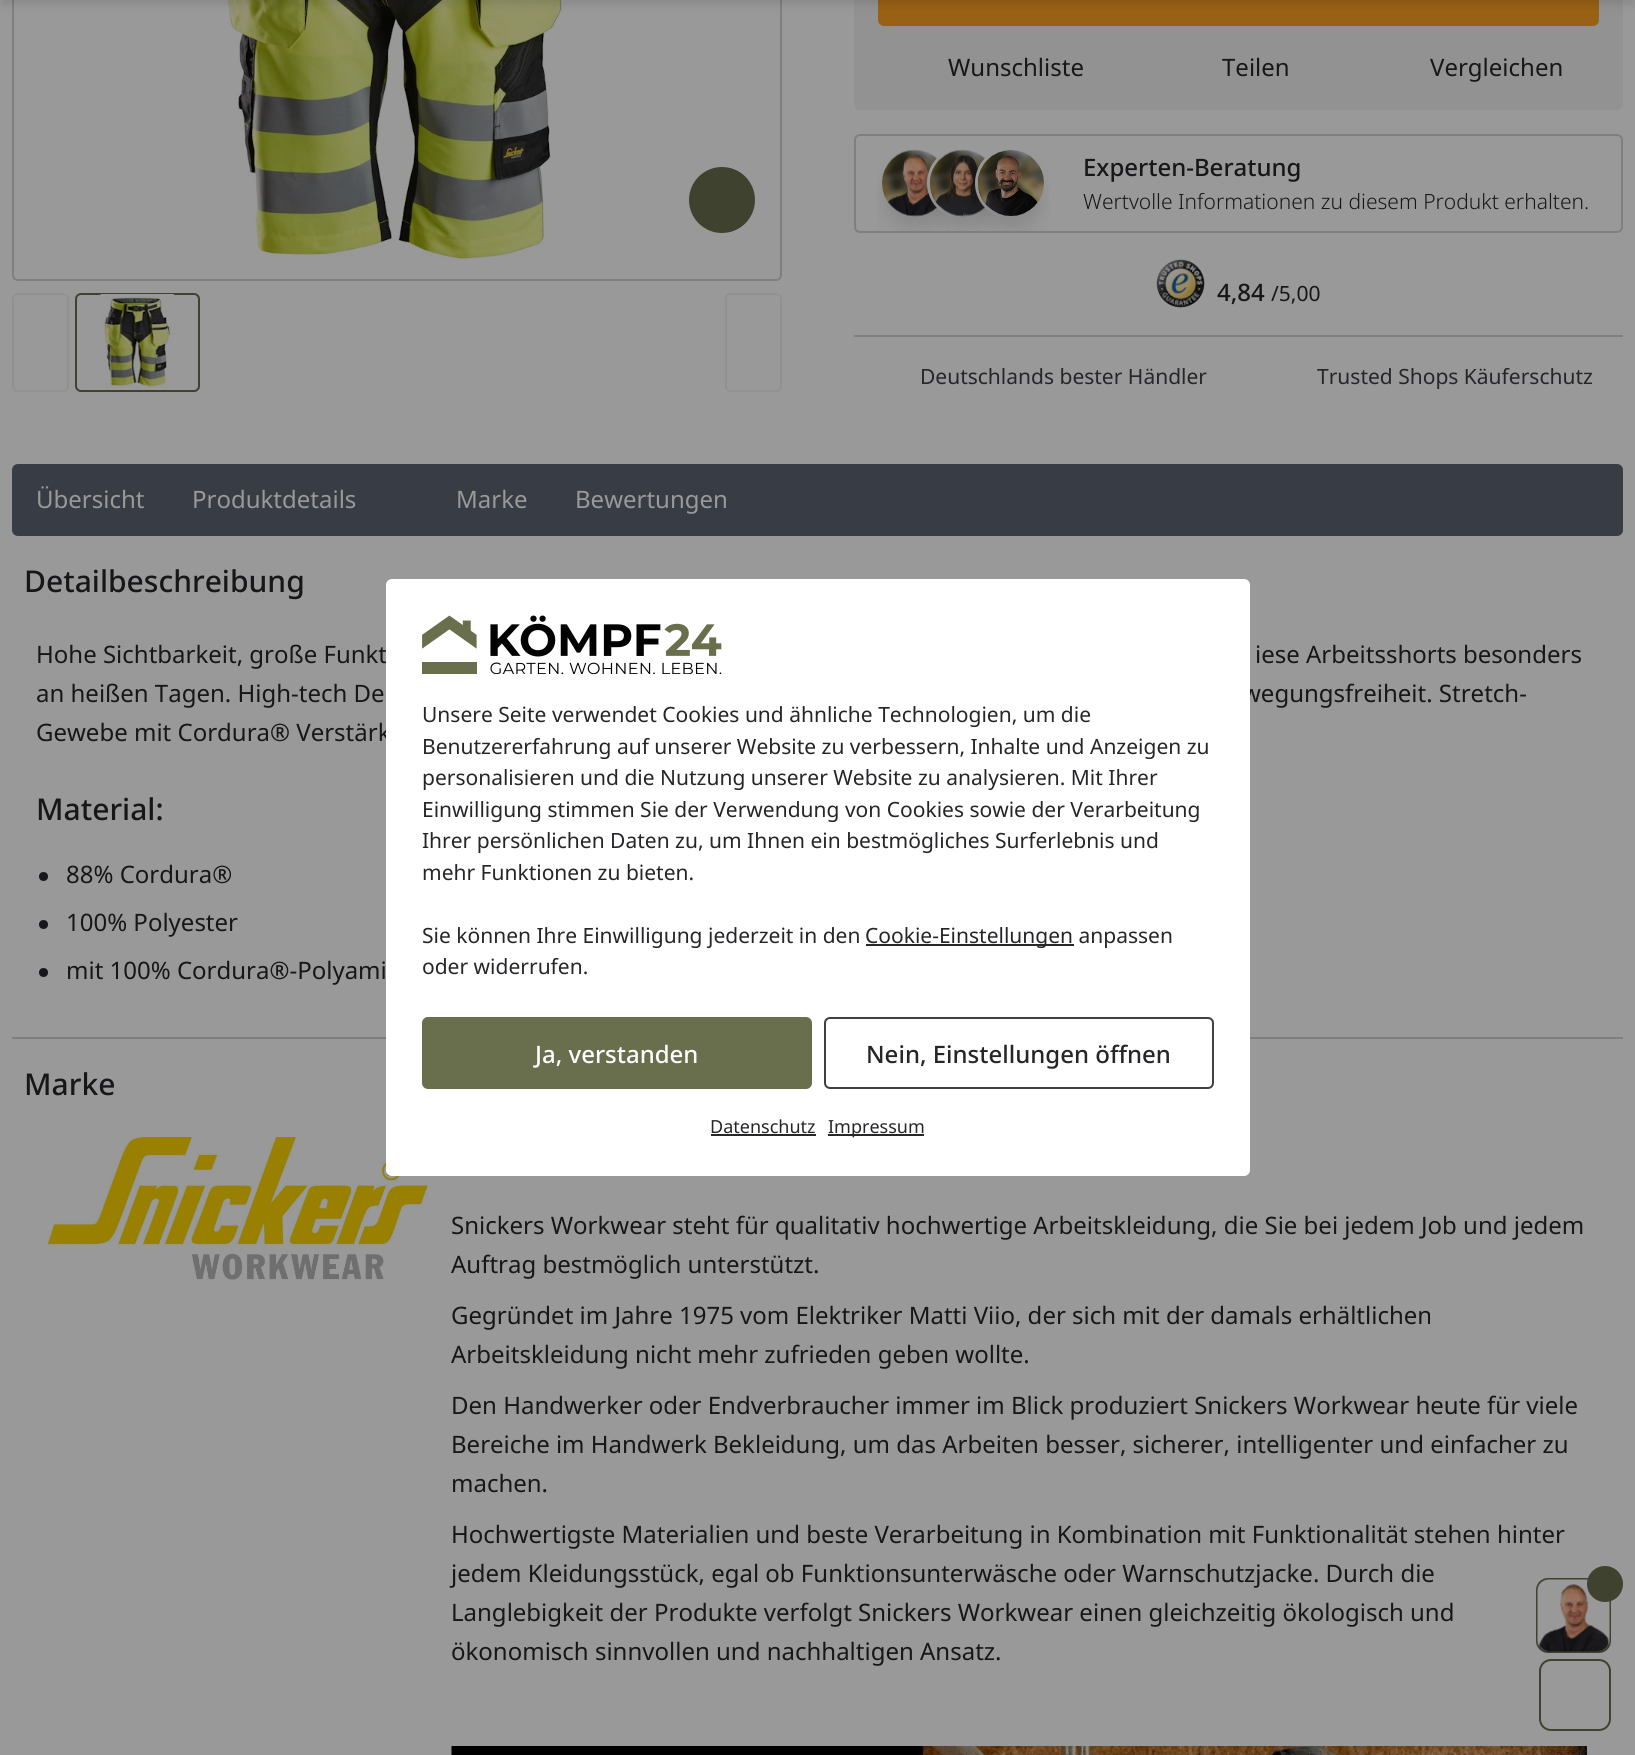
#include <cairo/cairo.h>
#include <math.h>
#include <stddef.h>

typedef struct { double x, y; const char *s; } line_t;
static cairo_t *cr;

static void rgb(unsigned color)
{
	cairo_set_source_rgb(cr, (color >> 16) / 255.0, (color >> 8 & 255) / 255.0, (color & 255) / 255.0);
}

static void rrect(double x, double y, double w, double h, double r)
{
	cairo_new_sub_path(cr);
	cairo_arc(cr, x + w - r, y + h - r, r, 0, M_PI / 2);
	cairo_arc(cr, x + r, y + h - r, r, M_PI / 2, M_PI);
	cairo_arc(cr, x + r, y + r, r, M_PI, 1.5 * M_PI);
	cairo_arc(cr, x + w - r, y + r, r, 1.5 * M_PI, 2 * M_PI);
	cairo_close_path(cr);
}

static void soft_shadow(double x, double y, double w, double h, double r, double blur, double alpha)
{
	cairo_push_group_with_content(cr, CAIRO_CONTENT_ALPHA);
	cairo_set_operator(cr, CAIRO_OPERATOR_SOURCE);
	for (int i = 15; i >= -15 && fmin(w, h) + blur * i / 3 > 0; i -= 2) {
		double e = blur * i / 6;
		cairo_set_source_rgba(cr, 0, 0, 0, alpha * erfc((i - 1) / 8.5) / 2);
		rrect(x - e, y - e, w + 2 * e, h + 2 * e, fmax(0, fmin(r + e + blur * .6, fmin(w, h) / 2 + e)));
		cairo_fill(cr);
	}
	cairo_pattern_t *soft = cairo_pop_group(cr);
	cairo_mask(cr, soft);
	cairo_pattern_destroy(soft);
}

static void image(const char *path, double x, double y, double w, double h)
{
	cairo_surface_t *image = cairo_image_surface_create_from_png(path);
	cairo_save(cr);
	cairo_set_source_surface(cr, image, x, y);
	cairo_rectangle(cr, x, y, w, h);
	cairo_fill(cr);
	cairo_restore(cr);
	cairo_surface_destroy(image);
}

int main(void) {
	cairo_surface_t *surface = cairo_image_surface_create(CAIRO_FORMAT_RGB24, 1635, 1755);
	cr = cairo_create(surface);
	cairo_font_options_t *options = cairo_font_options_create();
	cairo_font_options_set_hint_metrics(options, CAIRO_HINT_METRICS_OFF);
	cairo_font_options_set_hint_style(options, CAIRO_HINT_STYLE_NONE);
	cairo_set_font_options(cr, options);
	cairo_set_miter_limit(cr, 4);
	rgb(0x999999);
	cairo_paint(cr);
	rrect(13, -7, 768, 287, 5);
	rgb(0x7f7f82);
	cairo_stroke(cr);
	image("img/1.png", 227, 0, 335, 261);
	rgb(0x929293);
	rrect(854, -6, 769, 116, 6);
	cairo_fill(cr);
	rgb(0x986116);
	rrect(878, -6, 721, 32, 6);
	cairo_fill(cr);
	rgb(0x000000);
	soft_shadow(2, -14, 1632, 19, 0, 4.5, 0.1);
	rgb(0x3f422e);
	cairo_arc(cr, 722, 200, 34.5, 0, 2 * M_PI);
	cairo_fill_preserve(cr);
	rgb(0x999999);
	cairo_set_line_width(cr, 3);
	cairo_stroke(cr);
	rrect(13, 294, 55, 97, 5);
	rgb(0x919192);
	cairo_set_line_width(cr, 2);
	cairo_stroke(cr);
	rrect(76, 294, 123, 97, 5);
	rgb(0x3f422e);
	cairo_stroke(cr);
	image("img/2.png", 100, 294, 74, 96);
	rrect(726, 294, 55, 97, 5);
	rgb(0x919192);
	cairo_stroke(cr);
	rrect(855, 135, 767, 97, 5);
	rgb(0x7f7f82);
	cairo_stroke(cr);
	image("img/3.png", 877, 149, 73, 82);
	cairo_arc(cr, 963, 183, 34.5, 0, 2 * M_PI);
	rgb(0x999999);
	cairo_set_line_width(cr, 3);
	cairo_stroke(cr);
	image("img/4.png", 925, 149, 73, 82);
	cairo_arc(cr, 1011, 183, 34.5, 0, 2 * M_PI);
	cairo_stroke(cr);
	image("img/5.png", 975, 150, 74, 81);
	rgb(0x7f7f82);
	cairo_rectangle(cr, 854, 335, 769, 2);
	cairo_fill(cr);
	image("img/6.png", 1156, 259, 49, 49);
	rgb(0x383d45);
	rrect(12, 464, 1611, 72, 6);
	cairo_fill(cr);
	rgb(0x7f7f82);
	cairo_rectangle(cr, 12, 1037, 1611, 2);
	cairo_fill(cr);
	rgb(0x171719);
	cairo_arc(cr, 43.5, 876.5, 4.5, 0, 2 * M_PI);
	cairo_fill(cr);
	cairo_arc(cr, 43.5, 924.5, 4.5, 0, 2 * M_PI);
	cairo_fill(cr);
	cairo_arc(cr, 43.5, 972.5, 4.5, 0, 2 * M_PI);
	cairo_fill(cr);
	image("img/7.png", 48, 1137, 380, 143);
	image("img/8.png", 451, 1746, 1136, 9);
	rrect(1537, 1579, 73, 73, 11);
	rgb(0x3f422e);
	cairo_set_line_width(cr, 2);
	cairo_stroke(cr);
	image("img/10.png", 1537, 1579, 73, 73);
	cairo_arc(cr, 1605, 1584, 18, 0, 2 * M_PI);
	cairo_fill(cr);
	rrect(1540, 1660, 70, 70, 11);
	cairo_stroke(cr);
	cairo_select_font_face(cr, "Noto Sans", CAIRO_FONT_SLANT_NORMAL, CAIRO_FONT_WEIGHT_NORMAL);
	cairo_set_font_size(cr, 24);
	rgb(0x171719);
	{
		static const line_t items[] = {
			{948, 76, "Wunschliste"},
			{1222, 76, "Teilen"},
			{1430, 76, "Vergleichen"},
		};
		for (size_t i = 0; i < sizeof items / sizeof *items; i++) {
			cairo_move_to(cr, items[i].x, items[i].y);
			cairo_show_text(cr, items[i].s);
		}
	}
	cairo_select_font_face(cr, "Noto Sans Medium", CAIRO_FONT_SLANT_NORMAL, CAIRO_FONT_WEIGHT_NORMAL);
	cairo_move_to(cr, 1083, 176);
	cairo_show_text(cr, "Experten-Beratung");
	cairo_select_font_face(cr, "Noto Sans Light", CAIRO_FONT_SLANT_NORMAL, CAIRO_FONT_WEIGHT_NORMAL);
	cairo_set_font_size(cr, 21);
	cairo_move_to(cr, 1083, 209);
	cairo_show_text(cr, "Wertvolle Informationen zu diesem Produkt erhalten.");
	cairo_select_font_face(cr, "Noto Sans Medium", CAIRO_FONT_SLANT_NORMAL, CAIRO_FONT_WEIGHT_NORMAL);
	cairo_set_font_size(cr, 24);
	cairo_move_to(cr, 1217, 301);
	cairo_show_text(cr, "4,84");
	cairo_select_font_face(cr, "Noto Sans", CAIRO_FONT_SLANT_NORMAL, CAIRO_FONT_WEIGHT_NORMAL);
	cairo_set_font_size(cr, 21);
	cairo_move_to(cr, 1271, 301);
	cairo_show_text(cr, "/5,00");
	rgb(0x26262a);
	cairo_move_to(cr, 920, 384);
	cairo_show_text(cr, "Deutschlands bester Händler");
	cairo_move_to(cr, 1317, 384);
	cairo_show_text(cr, "Trusted Shops Käuferschutz");
	cairo_set_font_size(cr, 24);
	rgb(0x999999);
	{
		static const line_t items[] = {
			{36, 508, "Übersicht"},
			{192, 508, "Produktdetails"},
			{456, 508, "Marke"},
			{575, 508, "Bewertungen"},
		};
		for (size_t i = 0; i < sizeof items / sizeof *items; i++) {
			cairo_move_to(cr, items[i].x, items[i].y);
			cairo_show_text(cr, items[i].s);
		}
	}
	cairo_select_font_face(cr, "Noto Sans Medium", CAIRO_FONT_SLANT_NORMAL, CAIRO_FONT_WEIGHT_NORMAL);
	cairo_set_font_size(cr, 30);
	rgb(0x171719);
	cairo_move_to(cr, 24, 592);
	cairo_show_text(cr, "Detailbeschreibung");
	cairo_select_font_face(cr, "Noto Sans", CAIRO_FONT_SLANT_NORMAL, CAIRO_FONT_WEIGHT_NORMAL);
	cairo_set_font_size(cr, 24);
	{
		static const line_t items[] = {
			{36, 663, "Hohe Sichtbarkeit, große Funkt"},
			{1255, 663, "iese Arbeitsshorts besonders"},
			{36, 702, "an heißen Tagen. High-tech De"},
			{1242, 702, "wegungsfreiheit. Stretch-"},
			{36, 741, "Gewebe mit Cordura® Verstärk"},
		};
		for (size_t i = 0; i < sizeof items / sizeof *items; i++) {
			cairo_move_to(cr, items[i].x, items[i].y);
			cairo_show_text(cr, items[i].s);
		}
	}
	cairo_select_font_face(cr, "Noto Sans Medium", CAIRO_FONT_SLANT_NORMAL, CAIRO_FONT_WEIGHT_NORMAL);
	cairo_set_font_size(cr, 30);
	cairo_move_to(cr, 36, 820);
	cairo_show_text(cr, "Material:");
	cairo_select_font_face(cr, "Noto Sans", CAIRO_FONT_SLANT_NORMAL, CAIRO_FONT_WEIGHT_NORMAL);
	cairo_set_font_size(cr, 24);
	{
		static const line_t items[] = {
			{66, 883, "88% Cordura®"},
			{66, 931, "100% Polyester"},
			{66, 979, "mit 100% Cordura®-Polyami"},
		};
		for (size_t i = 0; i < sizeof items / sizeof *items; i++) {
			cairo_move_to(cr, items[i].x, items[i].y);
			cairo_show_text(cr, items[i].s);
		}
	}
	cairo_select_font_face(cr, "Noto Sans Medium", CAIRO_FONT_SLANT_NORMAL, CAIRO_FONT_WEIGHT_NORMAL);
	cairo_set_font_size(cr, 30);
	cairo_move_to(cr, 24, 1095);
	cairo_show_text(cr, "Marke");
	cairo_select_font_face(cr, "Noto Sans", CAIRO_FONT_SLANT_NORMAL, CAIRO_FONT_WEIGHT_NORMAL);
	cairo_set_font_size(cr, 24);
	{
		static const line_t items[] = {
			{451, 1234, "Snickers Workwear steht für qualitativ hochwertige Arbeitskleidung, die Sie bei jedem Job und jedem"},
			{451, 1273, "Auftrag bestmöglich unterstützt."},
			{451, 1324, "Gegründet im Jahre 1975 vom Elektriker Matti Viio, der sich mit der damals erhältlichen"},
			{451, 1363, "Arbeitskleidung nicht mehr zufrieden geben wollte."},
			{451, 1414, "Den Handwerker oder Endverbraucher immer im Blick produziert Snickers Workwear heute für viele"},
			{451, 1453, "Bereiche im Handwerk Bekleidung, um das Arbeiten besser, sicherer, intelligenter und einfacher zu"},
			{451, 1492, "machen."},
			{451, 1543, "Hochwertigste Materialien und beste Verarbeitung in Kombination mit Funktionalität stehen hinter"},
			{451, 1582, "jedem Kleidungsstück, egal ob Funktionsunterwäsche oder Warnschutzjacke. Durch die"},
			{451, 1621, "Langlebigkeit der Produkte verfolgt Snickers Workwear einen gleichzeitig ökologisch und"},
			{451, 1660, "ökonomisch sinnvollen und nachhaltigen Ansatz."},
		};
		for (size_t i = 0; i < sizeof items / sizeof *items; i++) {
			cairo_move_to(cr, items[i].x, items[i].y);
			cairo_show_text(cr, items[i].s);
		}
	}
	rgb(0xffffff);
	rrect(386, 579, 864, 597, 6);
	cairo_fill(cr);
	image("img/9.png", 422, 615, 300, 59);
	cairo_set_font_size(cr, 21);
	rgb(0x26262a);
	{
		static const line_t items[] = {
			{422, 722, "Unsere Seite verwendet Cookies und ähnliche Technologien, um die"},
			{422, 754, "Benutzererfahrung auf unserer Website zu verbessern, Inhalte und Anzeigen zu"},
			{422, 785, "personalisieren und die Nutzung unserer Website zu analysieren. Mit Ihrer"},
			{422, 817, "Einwilligung stimmen Sie der Verwendung von Cookies sowie der Verarbeitung"},
			{422, 848, "Ihrer persönlichen Daten zu, um Ihnen ein bestmögliches Surferlebnis und"},
			{422, 880, "mehr Funktionen zu bieten."},
			{422, 943, "Sie können Ihre Einwilligung jederzeit in den"},
		};
		for (size_t i = 0; i < sizeof items / sizeof *items; i++) {
			cairo_move_to(cr, items[i].x, items[i].y);
			cairo_show_text(cr, items[i].s);
		}
	}
	rgb(0x27272a);
	cairo_rectangle(cr, 866, 944, 208, 2);
	cairo_fill(cr);
	rgb(0x26262a);
	cairo_move_to(cr, 865, 943);
	cairo_show_text(cr, "Cookie-Einstellungen anpassen");
	cairo_move_to(cr, 422, 974);
	cairo_show_text(cr, "oder widerrufen.");
	rgb(0x696e4d);
	rrect(422, 1017, 390, 72, 6);
	cairo_fill(cr);
	cairo_select_font_face(cr, "Noto Sans Medium", CAIRO_FONT_SLANT_NORMAL, CAIRO_FONT_WEIGHT_NORMAL);
	cairo_set_font_size(cr, 24);
	rgb(0xffffff);
	cairo_move_to(cr, 535, 1063);
	cairo_show_text(cr, "Ja, verstanden");
	rrect(825, 1018, 388, 70, 5);
	rgb(0x3f3f46);
	cairo_stroke(cr);
	rgb(0x26262a);
	cairo_move_to(cr, 866, 1063);
	cairo_show_text(cr, "Nein, Einstellungen öffnen");
	cairo_select_font_face(cr, "Noto Sans", CAIRO_FONT_SLANT_NORMAL, CAIRO_FONT_WEIGHT_NORMAL);
	cairo_set_font_size(cr, 18);
	cairo_move_to(cr, 710, 1133);
	cairo_show_text(cr, "Datenschutz");
	rgb(0x27272a);
	cairo_rectangle(cr, 711, 1134, 105, 2);
	cairo_fill(cr);
	cairo_rectangle(cr, 828, 1134, 96, 2);
	cairo_fill(cr);
	rgb(0x26262a);
	cairo_move_to(cr, 828, 1133);
	cairo_show_text(cr, "Impressum");
	cairo_surface_write_to_png(surface, "page.png");
	cairo_font_options_destroy(options);
	cairo_destroy(cr);
	cairo_surface_destroy(surface);
	return 0;
}
